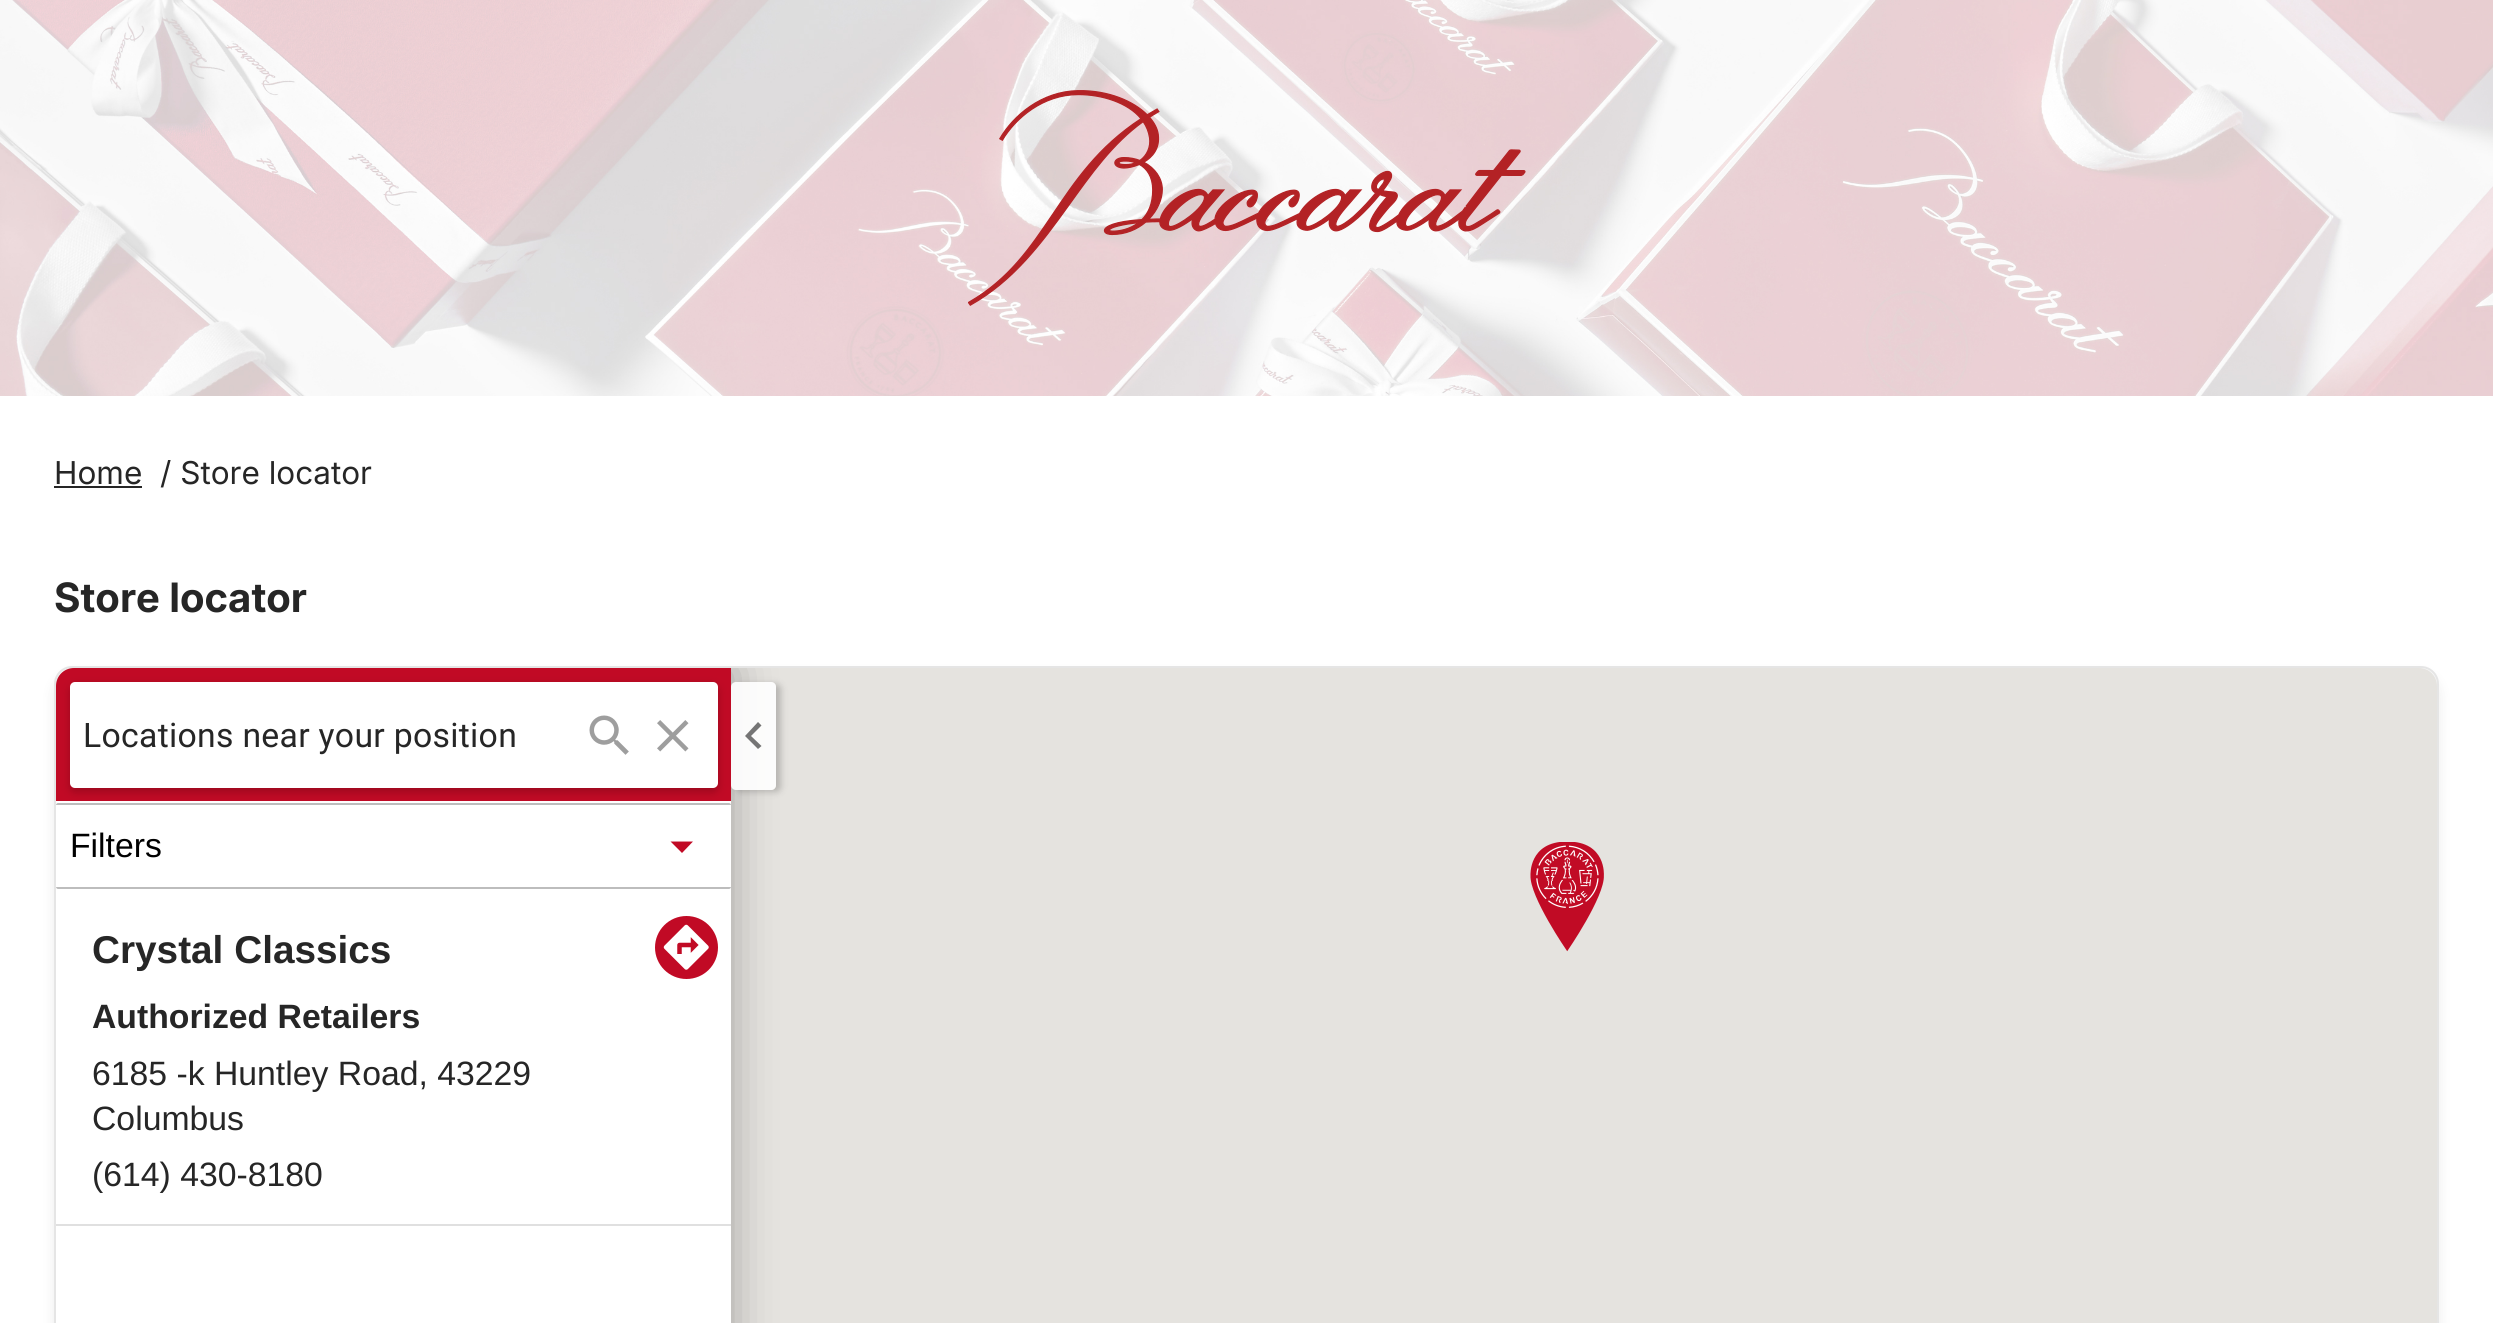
#include <cairo/cairo.h>
#include <math.h>
#include <stddef.h>

typedef struct { double x, y; const char *s; } line_t;
static cairo_t *cr;

static void rgb(unsigned color)
{
	cairo_set_source_rgb(cr, (color >> 16) / 255.0, (color >> 8 & 255) / 255.0, (color & 255) / 255.0);
}

static void tracked(double x, double y, const char *s, double letter, double word)
{
	cairo_move_to(cr, x, y);
	while (*s) {
		char ch[5] = {0};
		int n = 0;
		do ch[n++] = *s++; while ((*s & 0xC0) == 0x80);
		cairo_show_text(cr, ch);
		cairo_rel_move_to(cr, letter + word * (*ch == ' '), 0);
	}
}

static void rrect(double x, double y, double w, double h, double r)
{
	cairo_new_sub_path(cr);
	cairo_arc(cr, x + w - r, y + h - r, r, 0, M_PI / 2);
	cairo_arc(cr, x + r, y + h - r, r, M_PI / 2, M_PI);
	cairo_arc(cr, x + r, y + r, r, M_PI, 1.5 * M_PI);
	cairo_arc(cr, x + w - r, y + r, r, 1.5 * M_PI, 2 * M_PI);
	cairo_close_path(cr);
}

static void soft_shadow(double x, double y, double w, double h, double r, double blur, double alpha)
{
	cairo_push_group_with_content(cr, CAIRO_CONTENT_ALPHA);
	cairo_set_operator(cr, CAIRO_OPERATOR_SOURCE);
	for (int i = 15; i >= -15 && fmin(w, h) + blur * i / 3 > 0; i -= 2) {
		double e = blur * i / 6;
		cairo_set_source_rgba(cr, 0, 0, 0, alpha * erfc((i - 1) / 8.5) / 2);
		rrect(x - e, y - e, w + 2 * e, h + 2 * e, fmax(0, fmin(r + e + blur * .6, fmin(w, h) / 2 + e)));
		cairo_fill(cr);
	}
	cairo_pattern_t *soft = cairo_pop_group(cr);
	cairo_mask(cr, soft);
	cairo_pattern_destroy(soft);
}

static void image(const char *path, double x, double y, double w, double h)
{
	cairo_surface_t *image = cairo_image_surface_create_from_png(path);
	cairo_save(cr);
	cairo_set_source_surface(cr, image, x, y);
	cairo_rectangle(cr, x, y, w, h);
	cairo_fill(cr);
	cairo_restore(cr);
	cairo_surface_destroy(image);
}

int main(void) {
	cairo_surface_t *surface = cairo_image_surface_create(CAIRO_FORMAT_RGB24, 2493, 1323);
	cr = cairo_create(surface);
	cairo_font_options_t *options = cairo_font_options_create();
	cairo_font_options_set_hint_metrics(options, CAIRO_HINT_METRICS_OFF);
	cairo_font_options_set_hint_style(options, CAIRO_HINT_STYLE_NONE);
	cairo_set_font_options(cr, options);
	cairo_set_miter_limit(cr, 4);
	rgb(0xffffff);
	cairo_paint(cr);
	image("img/1.png", 0, 0, 2493, 396);
	image("img/2.png", 968, 90, 558, 216);
	rgb(0x262626);
	cairo_rectangle(cr, 54, 486, 88, 2);
	cairo_fill(cr);
	rgb(0x000000);
	soft_shadow(56, 677, 2381, 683, 16, 7, 0.1);
	rgb(0xf5f5f5);
	rrect(55, 667, 2383, 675, 17);
	cairo_fill_preserve(cr);
	rgb(0xe5e5e5);
	cairo_stroke(cr);
	rgb(0xe5e3df);
	rrect(56, 668, 2381, 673, 18);
	cairo_fill(cr);
	image("img/3.png", 1530, 842, 74, 110);
	cairo_save(cr);
	rrect(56, 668, 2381, 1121, 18);
	cairo_clip(cr);
	rgb(0x000000);
	soft_shadow(56, 668, 675, 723, 0, 22.5, 0.3);
	cairo_restore(cr);
	rgb(0xffffff);
	cairo_new_path(cr);
	cairo_move_to(cr, 74, 668);
	cairo_line_to(cr, 731, 668);
	cairo_line_to(cr, 731, 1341);
	cairo_line_to(cr, 56, 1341);
	cairo_line_to(cr, 56, 686);
	cairo_curve_to(cr, 56, 676, 64, 668, 74, 668);
	cairo_close_path(cr);
	cairo_fill(cr);
	rgb(0xc10a25);
	cairo_new_path(cr);
	cairo_move_to(cr, 74, 668);
	cairo_line_to(cr, 731, 668);
	cairo_line_to(cr, 731, 801);
	cairo_line_to(cr, 56, 801);
	cairo_line_to(cr, 56, 686);
	cairo_curve_to(cr, 56, 676, 64, 668, 74, 668);
	cairo_close_path(cr);
	cairo_fill(cr);
	rgb(0xbd0a24);
	cairo_new_path(cr);
	cairo_move_to(cr, 75, 680);
	cairo_line_to(cr, 713, 680);
	cairo_curve_to(cr, 716, 680, 718, 682, 718, 685);
	cairo_line_to(cr, 718, 782);
	cairo_line_to(cr, 718, 686);
	cairo_curve_to(cr, 718, 684, 716, 682, 713, 682);
	cairo_line_to(cr, 74, 682);
	cairo_curve_to(cr, 72, 682, 71, 683, 70, 685);
	cairo_curve_to(cr, 70, 682, 72, 680, 75, 680);
	cairo_close_path(cr);
	cairo_fill(cr);
	cairo_save(cr);
	cairo_set_fill_rule(cr, CAIRO_FILL_RULE_EVEN_ODD);
	cairo_new_path(cr);
	cairo_move_to(cr, 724, 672);
	cairo_line_to(cr, 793, 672);
	cairo_line_to(cr, 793, 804);
	cairo_line_to(cr, 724, 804);
	cairo_close_path(cr);
	cairo_move_to(cr, 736, 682);
	cairo_line_to(cr, 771, 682);
	cairo_curve_to(cr, 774, 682, 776, 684, 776, 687);
	cairo_line_to(cr, 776, 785);
	cairo_curve_to(cr, 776, 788, 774, 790, 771, 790);
	cairo_line_to(cr, 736, 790);
	cairo_curve_to(cr, 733, 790, 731, 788, 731, 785);
	cairo_line_to(cr, 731, 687);
	cairo_curve_to(cr, 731, 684, 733, 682, 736, 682);
	cairo_close_path(cr);
	cairo_clip(cr);
	rgb(0x000000);
	soft_shadow(736, 684, 45, 108, 5, 3.5, 0.2);
	cairo_restore(cr);
	rgb(0xbdbdbd);
	cairo_new_path(cr);
	cairo_move_to(cr, 58, 803);
	cairo_line_to(cr, 729, 803);
	cairo_curve_to(cr, 730, 803, 731, 804, 731, 805);
	cairo_line_to(cr, 56, 805);
	cairo_curve_to(cr, 56, 804, 57, 803, 58, 803);
	cairo_close_path(cr);
	cairo_fill(cr);
	cairo_set_source_rgba(cr, 1, 1, 1, 0.9);
	rrect(731, 682, 45, 108, 5);
	cairo_fill(cr);
	rgb(0x000000);
	soft_shadow(70, 686, 648, 106, 5, 4.5, 0.2);
	rgb(0xffffff);
	rrect(70, 682, 648, 106, 5);
	cairo_fill(cr);
	image("img/4.png", 589, 715, 40, 40);
	image("img/5.png", 657, 720, 32, 32);
	rgb(0xbdbdbd);
	cairo_new_path(cr);
	cairo_move_to(cr, 56, 887);
	cairo_line_to(cr, 731, 887);
	cairo_curve_to(cr, 731, 888, 730, 889, 729, 889);
	cairo_line_to(cr, 58, 889);
	cairo_curve_to(cr, 57, 889, 56, 888, 56, 887);
	cairo_close_path(cr);
	cairo_fill(cr);
	rgb(0xc10a25);
	cairo_new_path(cr);
	cairo_move_to(cr, 670.5, 841.5);
	cairo_line_to(cr, 682, 853);
	cairo_line_to(cr, 693, 841.5);
	cairo_close_path(cr);
	cairo_fill(cr);
	rgb(0xe0e0e0);
	cairo_rectangle(cr, 56, 1224, 675, 2);
	cairo_fill(cr);
	rgb(0xc10a25);
	cairo_arc(cr, 686.5, 947.5, 31.5, 0, 2 * M_PI);
	cairo_fill(cr);
	image("img/6.png", 663, 924, 46, 46);
	rgb(0x757575);
	cairo_new_path(cr);
	cairo_move_to(cr, 761.5, 725.5);
	cairo_line_to(cr, 758, 722);
	cairo_line_to(cr, 745, 736);
	cairo_line_to(cr, 758, 749);
	cairo_line_to(cr, 761.5, 746);
	cairo_line_to(cr, 751, 736);
	cairo_close_path(cr);
	cairo_fill(cr);
	cairo_select_font_face(cr, "Inter", CAIRO_FONT_SLANT_NORMAL, CAIRO_FONT_WEIGHT_NORMAL);
	cairo_set_font_size(cr, 31.5);
	rgb(0x262626);
	cairo_move_to(cr, 54, 484);
	cairo_show_text(cr, "Home");
	cairo_move_to(cr, 160, 484);
	cairo_show_text(cr, "/ Store locator");
	cairo_select_font_face(cr, "Inter", CAIRO_FONT_SLANT_NORMAL, CAIRO_FONT_WEIGHT_BOLD);
	cairo_set_font_size(cr, 40.5);
	cairo_move_to(cr, 54, 612);
	cairo_show_text(cr, "Store locator");
	cairo_select_font_face(cr, "Roboto", CAIRO_FONT_SLANT_NORMAL, CAIRO_FONT_WEIGHT_NORMAL);
	cairo_set_font_size(cr, 33.75);
	tracked(83, 747, "Locations near your position", 0.3, 0);
	cairo_select_font_face(cr, "Liberation Sans", CAIRO_FONT_SLANT_NORMAL, CAIRO_FONT_WEIGHT_NORMAL);
	rgb(0x000000);
	cairo_move_to(cr, 70, 857);
	cairo_show_text(cr, "Filters");
	cairo_select_font_face(cr, "Liberation Sans", CAIRO_FONT_SLANT_NORMAL, CAIRO_FONT_WEIGHT_BOLD);
	cairo_set_font_size(cr, 38.75);
	rgb(0x262626);
	cairo_move_to(cr, 92, 963);
	cairo_show_text(cr, "Crystal Classics");
	cairo_set_font_size(cr, 33.75);
	cairo_move_to(cr, 92, 1028);
	cairo_show_text(cr, "Authorized Retailers");
	cairo_select_font_face(cr, "Liberation Sans", CAIRO_FONT_SLANT_NORMAL, CAIRO_FONT_WEIGHT_NORMAL);
	{
		static const line_t items[] = {
			{92, 1085, "6185 -k Huntley Road, 43229"},
			{92, 1130, "Columbus"},
			{92, 1186, "(614) 430-8180"},
		};
		for (size_t i = 0; i < sizeof items / sizeof *items; i++) {
			cairo_move_to(cr, items[i].x, items[i].y);
			cairo_show_text(cr, items[i].s);
		}
	}
	cairo_surface_write_to_png(surface, "page.png");
	cairo_font_options_destroy(options);
	cairo_destroy(cr);
	cairo_surface_destroy(surface);
	return 0;
}
